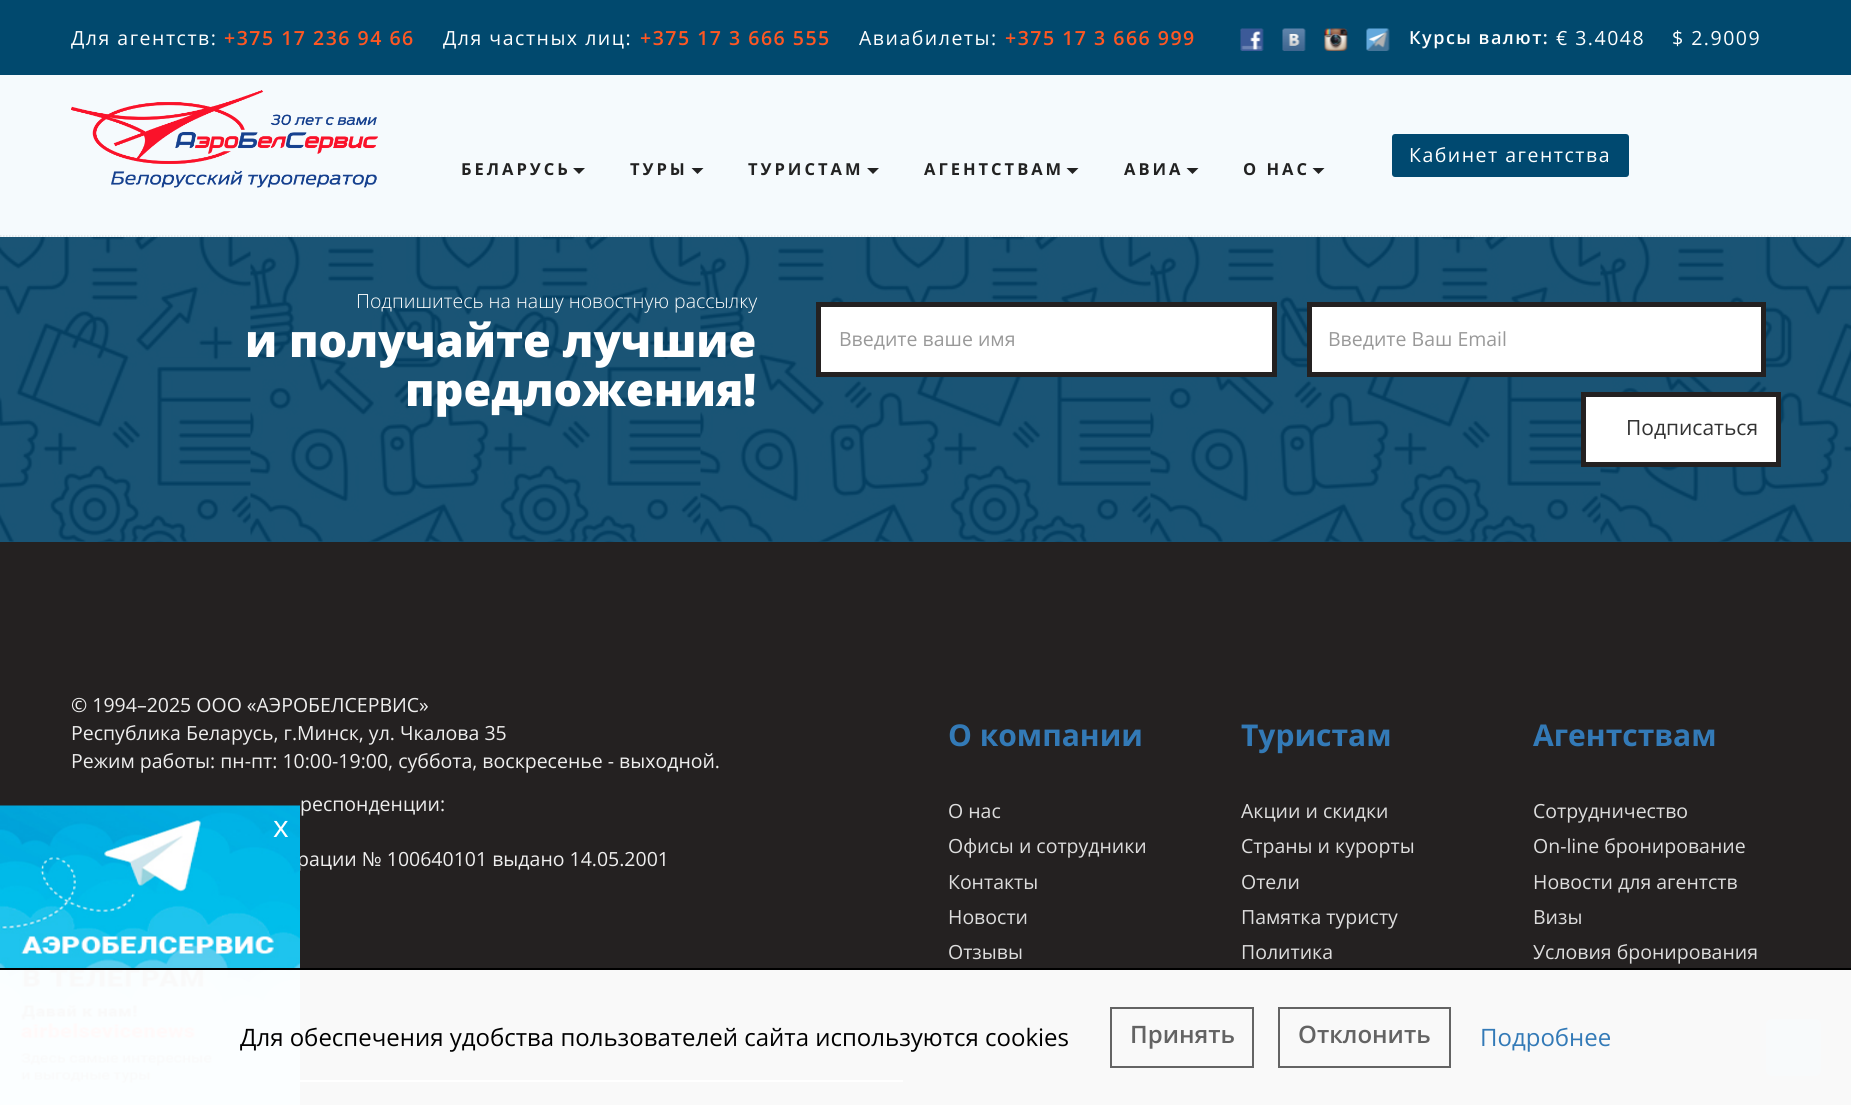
#include <cairo/cairo.h>
#include <math.h>
#include <stddef.h>

typedef struct { double x, y; const char *s; } line_t;
static cairo_t *cr;

static void rgb(unsigned color)
{
	cairo_set_source_rgb(cr, (color >> 16) / 255.0, (color >> 8 & 255) / 255.0, (color & 255) / 255.0);
}

static void tracked(double x, double y, const char *s, double letter, double word)
{
	cairo_move_to(cr, x, y);
	while (*s) {
		char ch[5] = {0};
		int n = 0;
		do ch[n++] = *s++; while ((*s & 0xC0) == 0x80);
		cairo_show_text(cr, ch);
		cairo_rel_move_to(cr, letter + word * (*ch == ' '), 0);
	}
}

static void rrect(double x, double y, double w, double h, double r)
{
	cairo_new_sub_path(cr);
	cairo_arc(cr, x + w - r, y + h - r, r, 0, M_PI / 2);
	cairo_arc(cr, x + r, y + h - r, r, M_PI / 2, M_PI);
	cairo_arc(cr, x + r, y + r, r, M_PI, 1.5 * M_PI);
	cairo_arc(cr, x + w - r, y + r, r, 1.5 * M_PI, 2 * M_PI);
	cairo_close_path(cr);
}

static void image(const char *path, double x, double y, double w, double h)
{
	cairo_surface_t *image = cairo_image_surface_create_from_png(path);
	cairo_save(cr);
	cairo_set_source_surface(cr, image, x, y);
	cairo_rectangle(cr, x, y, w, h);
	cairo_fill(cr);
	cairo_restore(cr);
	cairo_surface_destroy(image);
}

int main(void) {
	cairo_surface_t *surface = cairo_image_surface_create(CAIRO_FORMAT_RGB24, 1851, 1105);
	cr = cairo_create(surface);
	cairo_font_options_t *options = cairo_font_options_create();
	cairo_font_options_set_hint_metrics(options, CAIRO_HINT_METRICS_OFF);
	cairo_font_options_set_hint_style(options, CAIRO_HINT_STYLE_NONE);
	cairo_set_font_options(cr, options);
	cairo_set_miter_limit(cr, 4);
	rgb(0x195475);
	cairo_paint(cr);
	rgb(0xf5fafd);
	cairo_rectangle(cr, 0, 75, 1851, 162);
	cairo_fill(cr);
	cairo_new_path(cr);
	cairo_move_to(cr, 0, 236);
	cairo_line_to(cr, 1851, 236);
	rgb(0xe0e4e7);
	cairo_set_line_width(cr, 1.5);
	cairo_set_dash(cr, (double[]){1.5, 1.5}, 2, 0);
	cairo_stroke(cr);
	rgb(0x01496e);
	cairo_rectangle(cr, 0, 0, 1851, 75);
	cairo_fill(cr);
	image("img/1.png", 1240, 28, 24, 23);
	image("img/2.png", 1282, 28, 24, 23);
	image("img/3.png", 1324, 28, 24, 23);
	image("img/4.png", 1366, 28, 24, 23);
	image("img/5.png", 71, 90, 307, 98);
	rgb(0x004970);
	rrect(1392, 134, 237, 43, 3);
	cairo_fill(cr);
	rgb(0x222222);
	cairo_new_path(cr);
	cairo_move_to(cr, 573, 168);
	cairo_line_to(cr, 585, 168);
	cairo_line_to(cr, 579, 174);
	cairo_close_path(cr);
	cairo_fill(cr);
	cairo_new_path(cr);
	cairo_move_to(cr, 691.5, 168);
	cairo_line_to(cr, 703.5, 168);
	cairo_line_to(cr, 697.5, 174);
	cairo_close_path(cr);
	cairo_fill(cr);
	cairo_new_path(cr);
	cairo_move_to(cr, 867, 168);
	cairo_line_to(cr, 879, 168);
	cairo_line_to(cr, 873, 174);
	cairo_close_path(cr);
	cairo_fill(cr);
	cairo_new_path(cr);
	cairo_move_to(cr, 1066.5, 168);
	cairo_line_to(cr, 1078.5, 168);
	cairo_line_to(cr, 1072.5, 174);
	cairo_close_path(cr);
	cairo_fill(cr);
	cairo_new_path(cr);
	cairo_move_to(cr, 1186.5, 168);
	cairo_line_to(cr, 1198.5, 168);
	cairo_line_to(cr, 1192.5, 174);
	cairo_close_path(cr);
	cairo_fill(cr);
	cairo_new_path(cr);
	cairo_move_to(cr, 1312.5, 168);
	cairo_line_to(cr, 1324.5, 168);
	cairo_line_to(cr, 1318.5, 174);
	cairo_close_path(cr);
	cairo_fill(cr);
	image("img/6.png", 0, 237, 1851, 305);
	rgb(0xffffff);
	cairo_rectangle(cr, 818.5, 304.5, 456, 70);
	cairo_fill_preserve(cr);
	rgb(0x242121);
	cairo_set_line_width(cr, 5);
	cairo_set_dash(cr, NULL, 0, 0);
	cairo_stroke(cr);
	rgb(0xffffff);
	cairo_rectangle(cr, 1309.5, 304.5, 454, 70);
	cairo_fill_preserve(cr);
	rgb(0x242121);
	cairo_stroke(cr);
	rgb(0xffffff);
	cairo_rectangle(cr, 1583.5, 394.5, 195, 70);
	cairo_fill_preserve(cr);
	rgb(0x242121);
	cairo_stroke(cr);
	cairo_rectangle(cr, 0, 542, 1851, 563);
	cairo_fill(cr);
	rgb(0xeeeeee);
	cairo_rectangle(cr, 300, 1080, 603, 2);
	cairo_fill(cr);
	rgb(0x004970);
	rrect(1766, 1019, 55, 57, 6);
	cairo_fill(cr);
	cairo_select_font_face(cr, "Open Sans", CAIRO_FONT_SLANT_NORMAL, CAIRO_FONT_WEIGHT_NORMAL);
	cairo_set_font_size(cr, 19.5);
	rgb(0xffffff);
	tracked(71, 45, "Для агентств:", 1.5, 0);
	cairo_select_font_face(cr, "Open Sans SemiBold", CAIRO_FONT_SLANT_NORMAL, CAIRO_FONT_WEIGHT_NORMAL);
	rgb(0xff5722);
	tracked(224, 45, "+375 17 236 94 66", 1.5, 0);
	cairo_select_font_face(cr, "Open Sans", CAIRO_FONT_SLANT_NORMAL, CAIRO_FONT_WEIGHT_NORMAL);
	rgb(0xffffff);
	tracked(443, 45, "Для частных лиц:", 1.5, 0);
	cairo_select_font_face(cr, "Open Sans SemiBold", CAIRO_FONT_SLANT_NORMAL, CAIRO_FONT_WEIGHT_NORMAL);
	rgb(0xff5722);
	tracked(640, 45, "+375 17 3 666 555", 1.5, 0);
	cairo_select_font_face(cr, "Open Sans", CAIRO_FONT_SLANT_NORMAL, CAIRO_FONT_WEIGHT_NORMAL);
	rgb(0xffffff);
	tracked(859, 45, "Авиабилеты:", 1.5, 0);
	cairo_select_font_face(cr, "Open Sans SemiBold", CAIRO_FONT_SLANT_NORMAL, CAIRO_FONT_WEIGHT_NORMAL);
	rgb(0xff5722);
	tracked(1005, 45, "+375 17 3 666 999", 1.5, 0);
	cairo_set_font_size(cr, 18);
	rgb(0xffffff);
	tracked(1409, 44, "Курсы валют:", 1.5, 0);
	cairo_select_font_face(cr, "Open Sans", CAIRO_FONT_SLANT_NORMAL, CAIRO_FONT_WEIGHT_NORMAL);
	cairo_set_font_size(cr, 19.5);
	{
		static const line_t items[] = {
			{1556, 45, "€ 3.4048"},
			{1672, 45, "$ 2.9009"},
			{1409, 162, "Кабинет агентства"},
		};
		for (size_t i = 0; i < sizeof items / sizeof *items; i++) {
			tracked(items[i].x, items[i].y, items[i].s, 1.5, 0);
		}
	}
	cairo_select_font_face(cr, "Open Sans", CAIRO_FONT_SLANT_NORMAL, CAIRO_FONT_WEIGHT_BOLD);
	cairo_set_font_size(cr, 16.5);
	rgb(0x222222);
	{
		static const line_t items[] = {
			{461, 175, "БЕЛАРУСЬ"},
			{630, 175, "ТУРЫ"},
			{748, 175, "ТУРИСТАМ"},
			{924, 175, "АГЕНТСТВАМ"},
			{1124, 175, "АВИА"},
			{1243, 175, "О НАС"},
		};
		for (size_t i = 0; i < sizeof items / sizeof *items; i++) {
			tracked(items[i].x, items[i].y, items[i].s, 3, 0);
		}
	}
	cairo_select_font_face(cr, "Open Sans Light", CAIRO_FONT_SLANT_NORMAL, CAIRO_FONT_WEIGHT_NORMAL);
	cairo_set_font_size(cr, 19.5);
	rgb(0xffffff);
	cairo_move_to(cr, 356, 308);
	cairo_show_text(cr, "Подпишитесь на нашу новостную рассылку");
	cairo_select_font_face(cr, "Open Sans ExtraBold", CAIRO_FONT_SLANT_NORMAL, CAIRO_FONT_WEIGHT_NORMAL);
	cairo_set_font_size(cr, 45);
	cairo_move_to(cr, 245, 357);
	cairo_show_text(cr, "и получайте лучшие");
	cairo_move_to(cr, 405, 406);
	cairo_show_text(cr, "предложения!");
	cairo_select_font_face(cr, "Open Sans", CAIRO_FONT_SLANT_NORMAL, CAIRO_FONT_WEIGHT_NORMAL);
	cairo_set_font_size(cr, 19.5);
	rgb(0x999999);
	cairo_move_to(cr, 839, 346);
	cairo_show_text(cr, "Введите ваше имя");
	cairo_move_to(cr, 1328, 346);
	cairo_show_text(cr, "Введите Ваш Email");
	cairo_set_font_size(cr, 21);
	rgb(0x333333);
	cairo_move_to(cr, 1626, 435);
	cairo_show_text(cr, "Подписаться");
	cairo_set_font_size(cr, 19.5);
	rgb(0xeeeeee);
	{
		static const line_t items[] = {
			{71, 712, "© 1994–2025 ООО «АЭРОБЕЛСЕРВИС»"},
			{71, 740, "Республика Беларусь, г.Минск, ул. Чкалова 35"},
			{71, 768, "Режим работы: пн-пт: 10:00-19:00, суббота, воскресенье - выходной."},
			{300, 811, "респонденции:"},
			{297, 866, "рации № 100640101 выдано 14.05.2001"},
		};
		for (size_t i = 0; i < sizeof items / sizeof *items; i++) {
			cairo_move_to(cr, items[i].x, items[i].y);
			cairo_show_text(cr, items[i].s);
		}
	}
	cairo_select_font_face(cr, "Open Sans", CAIRO_FONT_SLANT_NORMAL, CAIRO_FONT_WEIGHT_BOLD);
	cairo_set_font_size(cr, 30);
	rgb(0x337ab7);
	cairo_move_to(cr, 948, 746);
	cairo_show_text(cr, "О компании");
	cairo_select_font_face(cr, "Open Sans", CAIRO_FONT_SLANT_NORMAL, CAIRO_FONT_WEIGHT_NORMAL);
	cairo_set_font_size(cr, 19.5);
	rgb(0xdddddd);
	{
		static const line_t items[] = {
			{948, 818, "О нас"},
			{948, 853, "Офисы и сотрудники"},
			{948, 889, "Контакты"},
			{948, 924, "Новости"},
			{948, 959, "Отзывы"},
		};
		for (size_t i = 0; i < sizeof items / sizeof *items; i++) {
			cairo_move_to(cr, items[i].x, items[i].y);
			cairo_show_text(cr, items[i].s);
		}
	}
	cairo_select_font_face(cr, "Open Sans", CAIRO_FONT_SLANT_NORMAL, CAIRO_FONT_WEIGHT_BOLD);
	cairo_set_font_size(cr, 30);
	rgb(0x337ab7);
	cairo_move_to(cr, 1241, 746);
	cairo_show_text(cr, "Туристам");
	cairo_select_font_face(cr, "Open Sans", CAIRO_FONT_SLANT_NORMAL, CAIRO_FONT_WEIGHT_NORMAL);
	cairo_set_font_size(cr, 19.5);
	rgb(0xdddddd);
	{
		static const line_t items[] = {
			{1241, 818, "Акции и скидки"},
			{1241, 853, "Страны и курорты"},
			{1241, 889, "Отели"},
			{1241, 924, "Памятка туристу"},
			{1241, 959, "Политика"},
		};
		for (size_t i = 0; i < sizeof items / sizeof *items; i++) {
			cairo_move_to(cr, items[i].x, items[i].y);
			cairo_show_text(cr, items[i].s);
		}
	}
	cairo_select_font_face(cr, "Open Sans", CAIRO_FONT_SLANT_NORMAL, CAIRO_FONT_WEIGHT_BOLD);
	cairo_set_font_size(cr, 30);
	rgb(0x337ab7);
	cairo_move_to(cr, 1533, 746);
	cairo_show_text(cr, "Агентствам");
	cairo_select_font_face(cr, "Open Sans", CAIRO_FONT_SLANT_NORMAL, CAIRO_FONT_WEIGHT_NORMAL);
	cairo_set_font_size(cr, 19.5);
	rgb(0xdddddd);
	{
		static const line_t items[] = {
			{1533, 818, "Сотрудничество"},
			{1533, 853, "On-line бронирование"},
			{1533, 889, "Новости для агентств"},
			{1533, 924, "Визы"},
			{1533, 959, "Условия бронирования"},
		};
		for (size_t i = 0; i < sizeof items / sizeof *items; i++) {
			cairo_move_to(cr, items[i].x, items[i].y);
			cairo_show_text(cr, items[i].s);
		}
	}
	image("img/7.png", 0, 805, 300, 300);
	cairo_set_font_size(cr, 30);
	rgb(0xffffff);
	cairo_move_to(cr, 273, 837);
	cairo_show_text(cr, "x");
	cairo_set_source_rgba(cr, 1, 1, 1, 0.97);
	cairo_rectangle(cr, 0, 970, 1851, 135);
	cairo_fill(cr);
	rgb(0x000000);
	cairo_rectangle(cr, 0, 968, 1851, 2);
	cairo_fill(cr);
	cairo_set_font_size(cr, 24);
	cairo_move_to(cr, 240, 1046);
	cairo_show_text(cr, "Для обеспечения удобства пользователей сайта используются cookies");
	cairo_rectangle(cr, 1111, 1008, 142, 59);
	cairo_set_source_rgba(cr, 0, 0, 0, 0.6);
	cairo_set_line_width(cr, 2);
	cairo_stroke(cr);
	cairo_select_font_face(cr, "Open Sans SemiBold", CAIRO_FONT_SLANT_NORMAL, CAIRO_FONT_WEIGHT_NORMAL);
	rgb(0x636363);
	cairo_move_to(cr, 1130, 1043);
	cairo_show_text(cr, "Принять");
	cairo_rectangle(cr, 1279, 1008, 171, 59);
	cairo_set_source_rgba(cr, 0, 0, 0, 0.6);
	cairo_stroke(cr);
	rgb(0x636363);
	cairo_move_to(cr, 1298, 1043);
	cairo_show_text(cr, "Отклонить");
	cairo_select_font_face(cr, "Open Sans", CAIRO_FONT_SLANT_NORMAL, CAIRO_FONT_WEIGHT_NORMAL);
	rgb(0x337ab7);
	cairo_move_to(cr, 1480, 1046);
	cairo_show_text(cr, "Подробнее");
	cairo_surface_write_to_png(surface, "page.png");
	cairo_font_options_destroy(options);
	cairo_destroy(cr);
	cairo_surface_destroy(surface);
	return 0;
}
